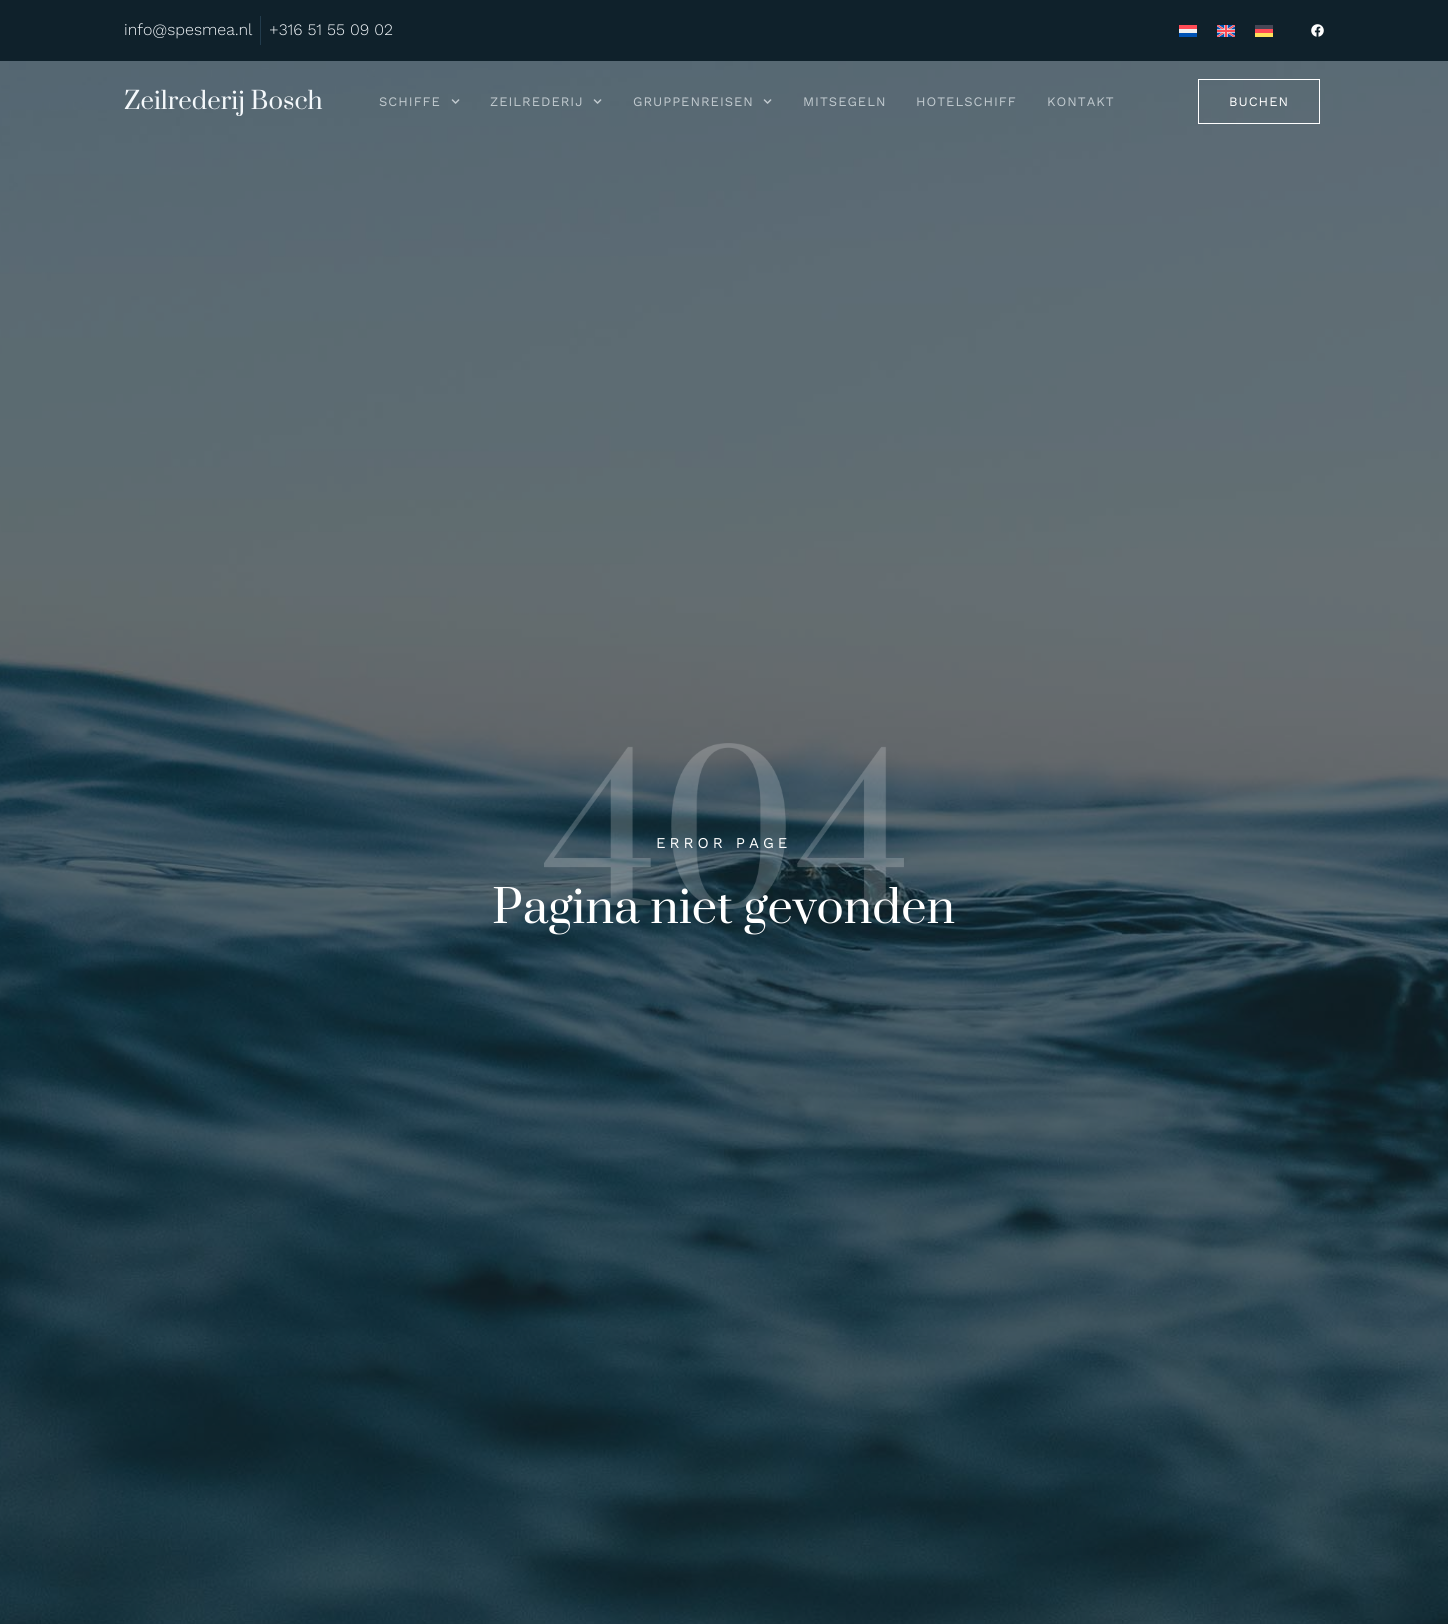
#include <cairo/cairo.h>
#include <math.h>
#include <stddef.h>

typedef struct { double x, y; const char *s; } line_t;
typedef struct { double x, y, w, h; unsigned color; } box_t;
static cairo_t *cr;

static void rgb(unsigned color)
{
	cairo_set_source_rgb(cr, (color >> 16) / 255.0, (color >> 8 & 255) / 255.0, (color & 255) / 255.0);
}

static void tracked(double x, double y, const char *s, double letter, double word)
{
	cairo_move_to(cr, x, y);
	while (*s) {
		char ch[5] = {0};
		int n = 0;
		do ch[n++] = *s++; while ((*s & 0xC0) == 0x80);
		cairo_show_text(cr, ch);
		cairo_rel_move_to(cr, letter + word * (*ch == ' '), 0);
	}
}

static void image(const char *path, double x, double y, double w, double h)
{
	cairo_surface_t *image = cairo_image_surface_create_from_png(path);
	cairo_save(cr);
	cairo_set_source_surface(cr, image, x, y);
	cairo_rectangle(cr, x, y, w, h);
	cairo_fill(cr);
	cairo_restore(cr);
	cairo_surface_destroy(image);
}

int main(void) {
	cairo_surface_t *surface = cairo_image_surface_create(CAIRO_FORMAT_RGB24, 1448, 1624);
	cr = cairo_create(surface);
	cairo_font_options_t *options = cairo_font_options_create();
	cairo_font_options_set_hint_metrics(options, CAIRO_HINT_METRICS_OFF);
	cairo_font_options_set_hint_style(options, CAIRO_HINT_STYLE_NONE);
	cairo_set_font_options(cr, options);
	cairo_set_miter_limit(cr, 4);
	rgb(0x0f212b);
	cairo_paint(cr);
	{
		static const box_t items[] = {
			{260, 16, 1, 29, 0x223c4d},
			{1179, 25, 18, 4, 0xff4b55},
			{1179, 29, 18, 4, 0xf0f0f0},
			{1179, 33, 18, 4, 0x0052b4},
		};
		for (size_t i = 0; i < sizeof items / sizeof *items; i++) {
			rgb(items[i].color);
			cairo_rectangle(cr, items[i].x, items[i].y, items[i].w, items[i].h);
			cairo_fill(cr);
		}
	}
	image("img/1.png", 1217, 25, 18, 12);
	{
		static const box_t items[] = {
			{1255, 25, 18, 4, 0x464655},
			{1255, 29, 18, 4, 0xff4b55},
			{1255, 33, 18, 4, 0xffe15a},
		};
		for (size_t i = 0; i < sizeof items / sizeof *items; i++) {
			rgb(items[i].color);
			cairo_rectangle(cr, items[i].x, items[i].y, items[i].w, items[i].h);
			cairo_fill(cr);
		}
	}
	image("img/2.png", 1311, 24, 13, 13);
	image("img/6.png", 0, 61, 1448, 1563);
	image("img/3.png", 451, 99, 9, 5);
	image("img/4.png", 593, 99, 9, 5);
	image("img/5.png", 763, 99, 9, 5);
	cairo_rectangle(cr, 1198.5, 79.5, 121, 44);
	rgb(0xffffff);
	cairo_set_line_width(cr, 1);
	cairo_stroke(cr);
	image("img/7.png", 544, 743, 360, 166);
	cairo_select_font_face(cr, "Work Sans Light", CAIRO_FONT_SLANT_NORMAL, CAIRO_FONT_WEIGHT_NORMAL);
	cairo_set_font_size(cr, 16);
	rgb(0xf4f8fb);
	cairo_move_to(cr, 124, 35);
	cairo_show_text(cr, "info@spesmea.nl");
	cairo_move_to(cr, 269, 35);
	cairo_show_text(cr, "+316 51 55 09 02");
	cairo_select_font_face(cr, "Prata", CAIRO_FONT_SLANT_NORMAL, CAIRO_FONT_WEIGHT_NORMAL);
	cairo_set_font_size(cr, 24);
	cairo_move_to(cr, 124, 109);
	cairo_show_text(cr, "Zeilrederij Bosch");
	cairo_select_font_face(cr, "Work Sans", CAIRO_FONT_SLANT_NORMAL, CAIRO_FONT_WEIGHT_NORMAL);
	cairo_set_font_size(cr, 13);
	rgb(0xc1cacf);
	{
		static const line_t items[] = {
			{379, 106, "SCHIFFE"},
			{490, 106, "ZEILREDERIJ"},
			{633, 106, "GRUPPENREISEN"},
			{803, 106, "MITSEGELN"},
			{916, 106, "HOTELSCHIFF"},
			{1047, 106, "KONTAKT"},
		};
		for (size_t i = 0; i < sizeof items / sizeof *items; i++) {
			tracked(items[i].x, items[i].y, items[i].s, 1, 0);
		}
	}
	rgb(0xffffff);
	tracked(1229, 106, "BUCHEN", 1, 0);
	cairo_set_font_size(cr, 15);
	tracked(656, 848, "ERROR PAGE", 4, 0);
	cairo_select_font_face(cr, "Prata", CAIRO_FONT_SLANT_NORMAL, CAIRO_FONT_WEIGHT_NORMAL);
	cairo_set_font_size(cr, 45);
	cairo_move_to(cr, 492, 923);
	cairo_show_text(cr, "Pagina niet gevonden");
	cairo_surface_write_to_png(surface, "page.png");
	cairo_font_options_destroy(options);
	cairo_destroy(cr);
	cairo_surface_destroy(surface);
	return 0;
}
